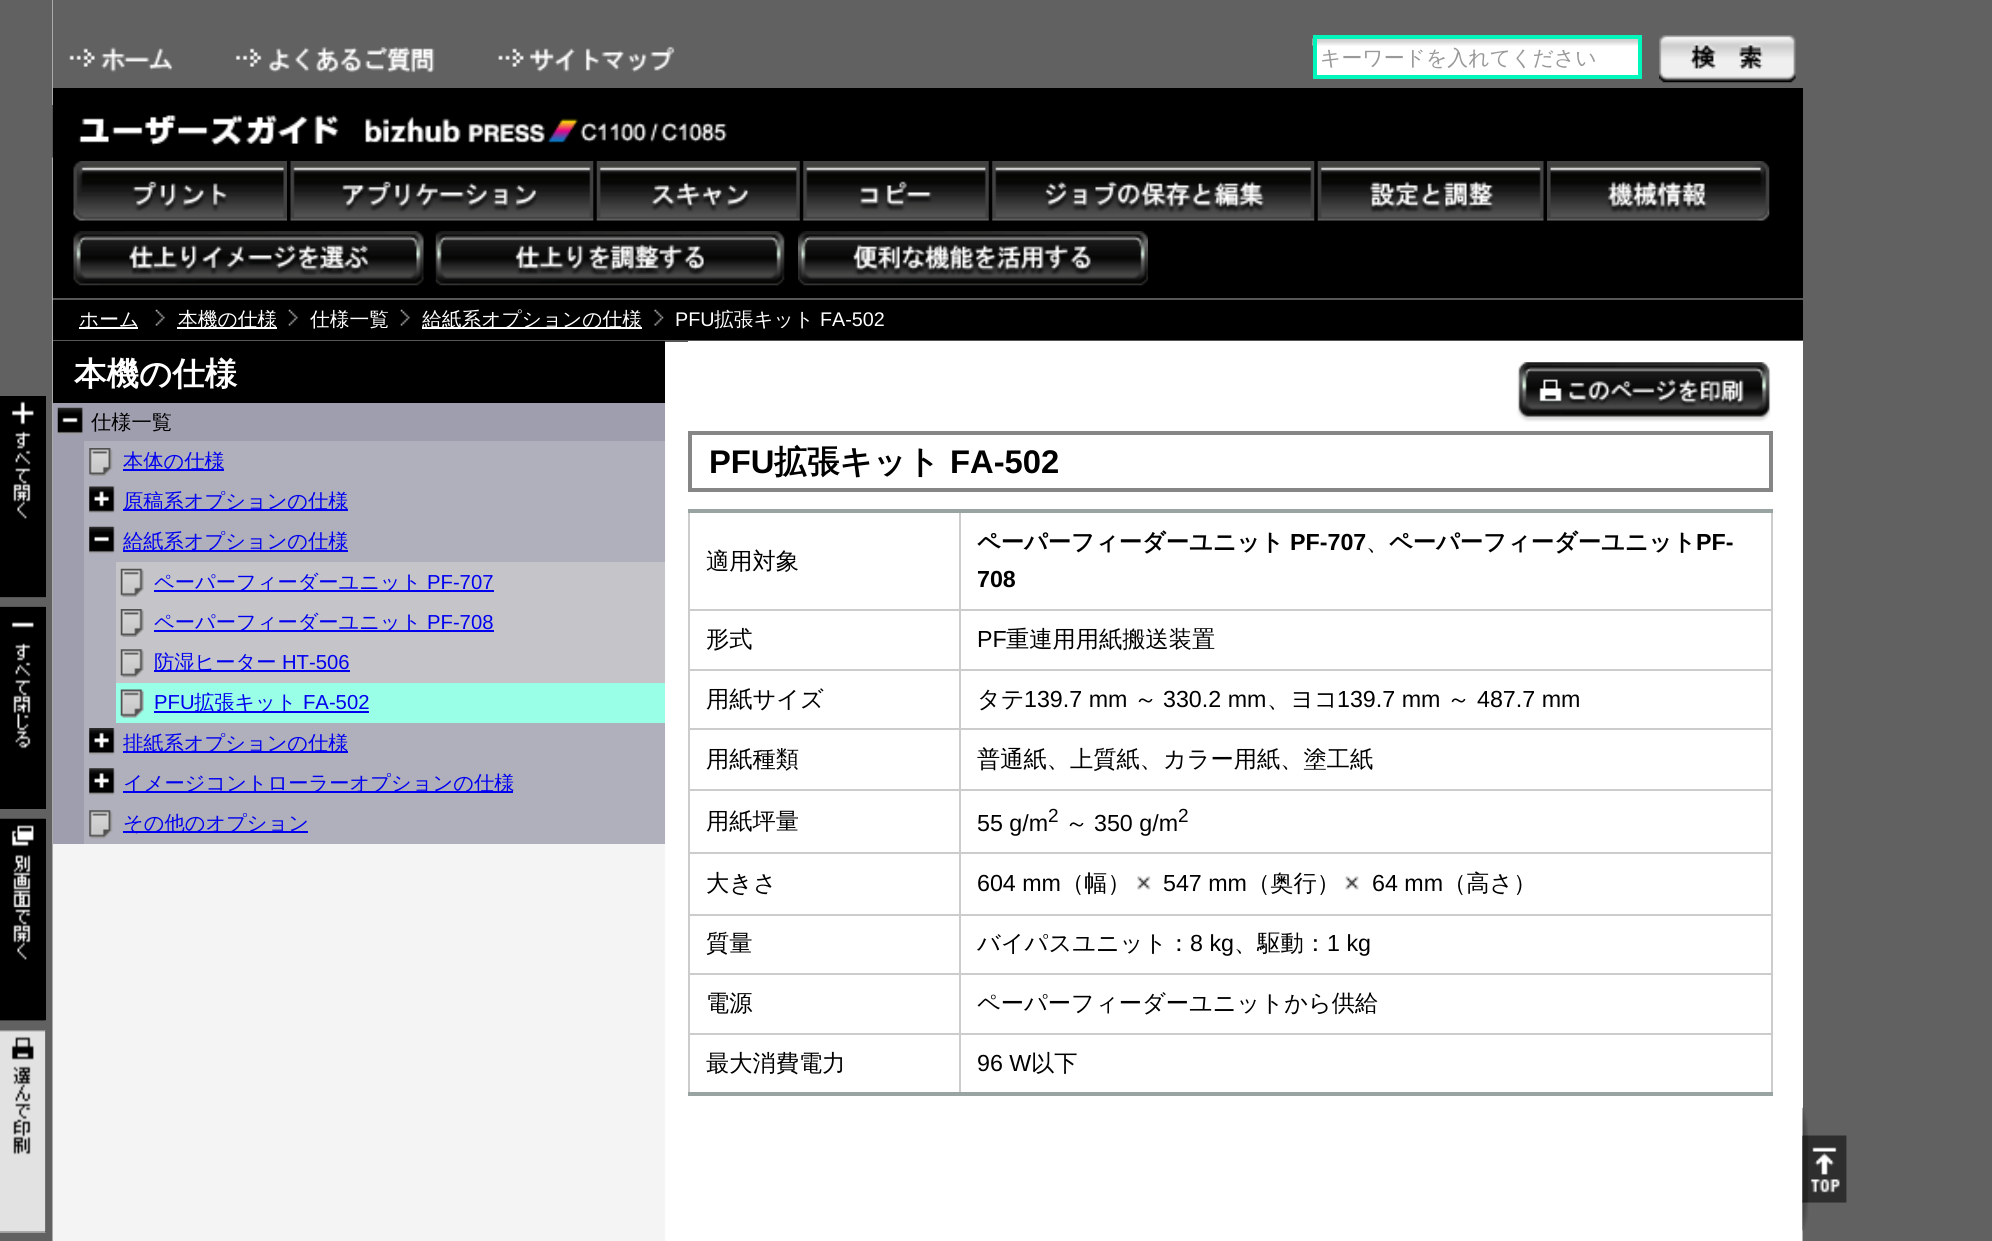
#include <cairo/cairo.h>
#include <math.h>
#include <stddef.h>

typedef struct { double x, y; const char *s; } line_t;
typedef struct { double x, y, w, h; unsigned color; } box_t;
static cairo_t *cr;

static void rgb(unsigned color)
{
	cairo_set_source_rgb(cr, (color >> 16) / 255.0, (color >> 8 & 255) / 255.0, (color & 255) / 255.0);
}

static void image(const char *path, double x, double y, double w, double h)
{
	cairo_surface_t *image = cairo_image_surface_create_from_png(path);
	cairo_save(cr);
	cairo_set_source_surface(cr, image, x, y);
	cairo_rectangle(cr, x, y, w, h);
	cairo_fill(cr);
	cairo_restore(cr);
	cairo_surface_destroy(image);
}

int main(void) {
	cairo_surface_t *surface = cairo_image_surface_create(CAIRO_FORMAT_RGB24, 1992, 1241);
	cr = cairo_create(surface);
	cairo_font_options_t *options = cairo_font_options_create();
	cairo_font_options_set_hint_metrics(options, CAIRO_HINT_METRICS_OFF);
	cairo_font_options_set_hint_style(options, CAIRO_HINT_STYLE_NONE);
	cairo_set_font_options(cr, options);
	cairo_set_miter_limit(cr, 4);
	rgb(0x616161);
	cairo_paint(cr);
	image("img/1.png", 52, 0, 1751, 1241);
	rgb(0x616161);
	cairo_rectangle(cr, 53, 0, 1750, 88);
	cairo_fill(cr);
	image("img/2.png", 69, 47, 104, 26);
	image("img/3.png", 235, 46, 200, 27);
	image("img/4.png", 498, 46, 177, 27);
	rgb(0xffffff);
	cairo_rectangle(cr, 1317, 45, 321, 30);
	cairo_fill(cr);
	image("img/5.png", 1312, 38, 326, 8);
	cairo_rectangle(cr, 1315, 37, 325, 40);
	rgb(0x00f6ba);
	cairo_set_line_width(cr, 4);
	cairo_stroke(cr);
	image("img/6.png", 1659, 35, 137, 48);
	rgb(0x000000);
	cairo_rectangle(cr, 53, 88, 1750, 210);
	cairo_fill(cr);
	image("img/7.png", 52, 105, 675, 53);
	image("img/8.png", 73, 161, 214, 60);
	image("img/9.png", 290, 161, 304, 60);
	image("img/10.png", 596, 161, 204, 60);
	image("img/11.png", 803, 161, 186, 60);
	image("img/12.png", 992, 161, 323, 60);
	image("img/13.png", 1317, 161, 227, 60);
	image("img/14.png", 1547, 161, 223, 60);
	image("img/15.png", 73, 231, 351, 55);
	image("img/16.png", 435, 231, 350, 55);
	image("img/17.png", 798, 231, 350, 55);
	{
		static const box_t items[] = {
			{53, 300, 1750, 40, 0x000000},
			{53, 298, 1750, 2, 0x575757},
			{53, 340, 1750, 2, 0x575757},
			{79, 327, 59, 2, 0xffffff},
		};
		for (size_t i = 0; i < sizeof items / sizeof *items; i++) {
			rgb(items[i].color);
			cairo_rectangle(cr, items[i].x, items[i].y, items[i].w, items[i].h);
			cairo_fill(cr);
		}
	}
	image("img/18.png", 155, 309, 10, 17);
	cairo_rectangle(cr, 177, 327, 100, 2);
	cairo_fill(cr);
	image("img/19.png", 288, 309, 10, 17);
	image("img/19.png", 400, 309, 10, 17);
	cairo_rectangle(cr, 422, 327, 220, 2);
	cairo_fill(cr);
	image("img/20.png", 654, 309, 10, 17);
	rgb(0x000000);
	cairo_rectangle(cr, 53, 341, 612, 62);
	cairo_fill(cr);
	cairo_rectangle(cr, 0, 396, 46, 201);
	cairo_fill(cr);
	image("img/21.png", 0, 401, 46, 197);
	cairo_rectangle(cr, 0, 607, 46, 202);
	cairo_fill(cr);
	image("img/22.png", 0, 606, 46, 143);
	cairo_rectangle(cr, 0, 819, 46, 201);
	cairo_fill(cr);
	image("img/23.png", 0, 818, 46, 203);
	cairo_rectangle(cr, 0, 1031, 46, 201);
	cairo_fill(cr);
	image("img/24.png", 0, 1030, 46, 203);
	rgb(0x9f9eaf);
	cairo_rectangle(cr, 53, 403, 612, 441);
	cairo_fill(cr);
	image("img/25.png", 57, 407, 26, 28);
	rgb(0xb0afbc);
	cairo_rectangle(cr, 84, 441, 581, 403);
	cairo_fill(cr);
	image("img/26.png", 89, 448, 24, 28);
	rgb(0x0000ef);
	cairo_rectangle(cr, 123, 469, 101, 2);
	cairo_fill(cr);
	image("img/27.png", 89, 486, 26, 27);
	cairo_rectangle(cr, 123, 509, 225, 2);
	cairo_fill(cr);
	image("img/28.png", 89, 526, 26, 28);
	cairo_rectangle(cr, 123, 550, 225, 2);
	cairo_fill(cr);
	rgb(0xc5c5c9);
	cairo_rectangle(cr, 116, 562, 549, 121);
	cairo_fill(cr);
	image("img/29.png", 120, 568, 24, 29);
	rgb(0x0000ef);
	cairo_rectangle(cr, 154, 590, 340, 2);
	cairo_fill(cr);
	image("img/30.png", 120, 609, 24, 28);
	cairo_rectangle(cr, 154, 630, 340, 2);
	cairo_fill(cr);
	image("img/31.png", 120, 649, 24, 29);
	cairo_rectangle(cr, 154, 670, 196, 2);
	cairo_fill(cr);
	rgb(0x99ffe6);
	cairo_rectangle(cr, 116, 683, 549, 40);
	cairo_fill(cr);
	image("img/32.png", 120, 689, 24, 29);
	rgb(0x0000ef);
	cairo_rectangle(cr, 154, 711, 215, 2);
	cairo_fill(cr);
	image("img/33.png", 89, 728, 26, 27);
	cairo_rectangle(cr, 123, 751, 225, 2);
	cairo_fill(cr);
	image("img/34.png", 89, 768, 26, 27);
	cairo_rectangle(cr, 123, 791, 390, 2);
	cairo_fill(cr);
	image("img/35.png", 89, 810, 24, 29);
	cairo_rectangle(cr, 123, 831, 185, 2);
	cairo_fill(cr);
	rgb(0xffffff);
	cairo_rectangle(cr, 688, 341, 1115, 860);
	cairo_fill(cr);
	image("img/36.png", 1517, 362, 254, 60);
	cairo_rectangle(cr, 690, 433, 1081, 57);
	rgb(0x868686);
	cairo_stroke(cr);
	{
		static const box_t items[] = {
			{959, 609, 814, 2, 0xcccccc},
			{959, 669, 814, 2, 0xcccccc},
			{959, 728, 814, 2, 0xcccccc},
			{959, 789, 814, 2, 0xcccccc},
			{959, 852, 814, 2, 0xcccccc},
			{959, 914, 814, 2, 0xcccccc},
			{959, 973, 814, 2, 0xcccccc},
			{959, 1033, 814, 2, 0xcccccc},
			{959, 1033, 2, 63, 0xcccccc},
			{688, 1033, 273, 2, 0xcccccc},
			{959, 973, 2, 61, 0xcccccc},
			{688, 973, 273, 2, 0xcccccc},
			{959, 914, 2, 61, 0xcccccc},
			{688, 914, 273, 2, 0xcccccc},
			{959, 852, 2, 63, 0xcccccc},
			{688, 852, 273, 2, 0xcccccc},
			{959, 789, 2, 65, 0xcccccc},
			{688, 789, 273, 2, 0xcccccc},
			{959, 728, 2, 63, 0xcccccc},
			{688, 728, 273, 2, 0xcccccc},
			{959, 669, 2, 61, 0xcccccc},
			{688, 669, 273, 2, 0xcccccc},
			{959, 609, 2, 61, 0xcccccc},
			{688, 609, 273, 2, 0xcccccc},
			{959, 511, 2, 100, 0xcccccc},
			{688, 1033, 2, 63, 0xcccccc},
			{688, 973, 2, 61, 0xcccccc},
			{688, 914, 2, 61, 0xcccccc},
			{688, 852, 2, 63, 0xcccccc},
			{688, 789, 2, 65, 0xcccccc},
			{688, 728, 2, 63, 0xcccccc},
			{688, 669, 2, 61, 0xcccccc},
			{688, 511, 2, 159, 0xcccccc},
			{1771, 1033, 2, 63, 0xcccccc},
			{1771, 973, 2, 61, 0xcccccc},
			{1771, 914, 2, 61, 0xcccccc},
			{1771, 852, 2, 63, 0xcccccc},
			{1771, 789, 2, 65, 0xcccccc},
			{1771, 728, 2, 63, 0xcccccc},
			{1771, 669, 2, 61, 0xcccccc},
			{1771, 511, 2, 159, 0xcccccc},
			{688, 509, 1085, 4, 0x99a3a2},
			{688, 1092, 1085, 4, 0x99a3a2},
		};
		for (size_t i = 0; i < sizeof items / sizeof *items; i++) {
			rgb(items[i].color);
			cairo_rectangle(cr, items[i].x, items[i].y, items[i].w, items[i].h);
			cairo_fill(cr);
		}
	}
	image("img/37.png", 1137, 876, 14, 14);
	image("img/38.png", 1345, 876, 14, 14);
	image("img/39.png", 1802, 1107, 45, 124);
	image("img/40.png", 1802, 1135, 45, 68);
	cairo_select_font_face(cr, "WenQuanYi Zen Hei Medium", CAIRO_FONT_SLANT_NORMAL, CAIRO_FONT_WEIGHT_NORMAL);
	cairo_set_font_size(cr, 20.9);
	rgb(0x999999);
	cairo_move_to(cr, 1320, 65);
	cairo_show_text(cr, "キーワードを入れてください");
	cairo_set_font_size(cr, 19.75);
	rgb(0xffffff);
	{
		static const line_t items[] = {
			{79, 326, "ホーム"},
			{178, 326, "本機の仕様"},
			{310, 326, "仕様一覧"},
			{422, 326, "給紙系オプションの仕様"},
		};
		for (size_t i = 0; i < sizeof items / sizeof *items; i++) {
			cairo_move_to(cr, items[i].x, items[i].y);
			cairo_show_text(cr, items[i].s);
		}
	}
	cairo_select_font_face(cr, "Liberation Sans", CAIRO_FONT_SLANT_NORMAL, CAIRO_FONT_WEIGHT_NORMAL);
	cairo_move_to(cr, 675, 326);
	cairo_show_text(cr, "PFU");
	cairo_select_font_face(cr, "WenQuanYi Zen Hei Medium", CAIRO_FONT_SLANT_NORMAL, CAIRO_FONT_WEIGHT_NORMAL);
	cairo_move_to(cr, 714, 326);
	cairo_show_text(cr, "拡張キット");
	cairo_select_font_face(cr, "Liberation Sans", CAIRO_FONT_SLANT_NORMAL, CAIRO_FONT_WEIGHT_NORMAL);
	cairo_move_to(cr, 820, 326);
	cairo_show_text(cr, "FA-502");
	cairo_select_font_face(cr, "WenQuanYi Zen Hei", CAIRO_FONT_SLANT_NORMAL, CAIRO_FONT_WEIGHT_BOLD);
	cairo_set_font_size(cr, 32.5);
	cairo_move_to(cr, 74, 385);
	cairo_show_text(cr, "本機の仕様");
	cairo_select_font_face(cr, "WenQuanYi Zen Hei Medium", CAIRO_FONT_SLANT_NORMAL, CAIRO_FONT_WEIGHT_NORMAL);
	cairo_set_font_size(cr, 20.25);
	rgb(0x000000);
	cairo_move_to(cr, 91, 429);
	cairo_show_text(cr, "仕様一覧");
	rgb(0x0000ef);
	{
		static const line_t items[] = {
			{123, 468, "本体の仕様"},
			{123, 508, "原稿系オプションの仕様"},
			{123, 548, "給紙系オプションの仕様"},
			{154, 589, "ペーパーフィーダーユニット"},
		};
		for (size_t i = 0; i < sizeof items / sizeof *items; i++) {
			cairo_move_to(cr, items[i].x, items[i].y);
			cairo_show_text(cr, items[i].s);
		}
	}
	cairo_select_font_face(cr, "Liberation Sans", CAIRO_FONT_SLANT_NORMAL, CAIRO_FONT_WEIGHT_NORMAL);
	cairo_move_to(cr, 427, 589);
	cairo_show_text(cr, "PF-707");
	cairo_select_font_face(cr, "WenQuanYi Zen Hei Medium", CAIRO_FONT_SLANT_NORMAL, CAIRO_FONT_WEIGHT_NORMAL);
	cairo_move_to(cr, 154, 629);
	cairo_show_text(cr, "ペーパーフィーダーユニット");
	cairo_select_font_face(cr, "Liberation Sans", CAIRO_FONT_SLANT_NORMAL, CAIRO_FONT_WEIGHT_NORMAL);
	cairo_move_to(cr, 427, 629);
	cairo_show_text(cr, "PF-708");
	cairo_select_font_face(cr, "WenQuanYi Zen Hei Medium", CAIRO_FONT_SLANT_NORMAL, CAIRO_FONT_WEIGHT_NORMAL);
	cairo_move_to(cr, 154, 669);
	cairo_show_text(cr, "防湿ヒーター");
	cairo_select_font_face(cr, "Liberation Sans", CAIRO_FONT_SLANT_NORMAL, CAIRO_FONT_WEIGHT_NORMAL);
	cairo_move_to(cr, 282, 669);
	cairo_show_text(cr, "HT-506");
	cairo_move_to(cr, 154, 709);
	cairo_show_text(cr, "PFU");
	cairo_select_font_face(cr, "WenQuanYi Zen Hei Medium", CAIRO_FONT_SLANT_NORMAL, CAIRO_FONT_WEIGHT_NORMAL);
	cairo_move_to(cr, 194, 709);
	cairo_show_text(cr, "拡張キット");
	cairo_select_font_face(cr, "Liberation Sans", CAIRO_FONT_SLANT_NORMAL, CAIRO_FONT_WEIGHT_NORMAL);
	cairo_move_to(cr, 303, 709);
	cairo_show_text(cr, "FA-502");
	cairo_select_font_face(cr, "WenQuanYi Zen Hei Medium", CAIRO_FONT_SLANT_NORMAL, CAIRO_FONT_WEIGHT_NORMAL);
	{
		static const line_t items[] = {
			{123, 750, "排紙系オプションの仕様"},
			{123, 790, "イメージコントローラーオプションの仕様"},
			{123, 830, "その他のオプション"},
		};
		for (size_t i = 0; i < sizeof items / sizeof *items; i++) {
			cairo_move_to(cr, items[i].x, items[i].y);
			cairo_show_text(cr, items[i].s);
		}
	}
	cairo_select_font_face(cr, "Liberation Sans", CAIRO_FONT_SLANT_NORMAL, CAIRO_FONT_WEIGHT_BOLD);
	cairo_set_font_size(cr, 32.75);
	rgb(0x000000);
	cairo_move_to(cr, 709, 473);
	cairo_show_text(cr, "PFU");
	cairo_select_font_face(cr, "WenQuanYi Zen Hei", CAIRO_FONT_SLANT_NORMAL, CAIRO_FONT_WEIGHT_BOLD);
	cairo_move_to(cr, 774, 473);
	cairo_show_text(cr, "拡張キット");
	cairo_select_font_face(cr, "Liberation Sans", CAIRO_FONT_SLANT_NORMAL, CAIRO_FONT_WEIGHT_BOLD);
	cairo_move_to(cr, 950, 473);
	cairo_show_text(cr, "FA-502");
	cairo_select_font_face(cr, "WenQuanYi Zen Hei Medium", CAIRO_FONT_SLANT_NORMAL, CAIRO_FONT_WEIGHT_NORMAL);
	cairo_set_font_size(cr, 23.25);
	cairo_move_to(cr, 706, 569);
	cairo_show_text(cr, "適用対象");
	cairo_select_font_face(cr, "WenQuanYi Zen Hei", CAIRO_FONT_SLANT_NORMAL, CAIRO_FONT_WEIGHT_BOLD);
	cairo_move_to(cr, 977, 550);
	cairo_show_text(cr, "ペーパーフィーダーユニット");
	cairo_select_font_face(cr, "Liberation Sans", CAIRO_FONT_SLANT_NORMAL, CAIRO_FONT_WEIGHT_BOLD);
	cairo_move_to(cr, 1290, 550);
	cairo_show_text(cr, "PF-707");
	cairo_select_font_face(cr, "WenQuanYi Zen Hei", CAIRO_FONT_SLANT_NORMAL, CAIRO_FONT_WEIGHT_BOLD);
	cairo_move_to(cr, 1389, 550);
	cairo_show_text(cr, "ペーパーフィーダーユニット");
	cairo_select_font_face(cr, "Liberation Sans", CAIRO_FONT_SLANT_NORMAL, CAIRO_FONT_WEIGHT_BOLD);
	cairo_move_to(cr, 1696, 550);
	cairo_show_text(cr, "PF-");
	cairo_select_font_face(cr, "WenQuanYi Zen Hei Medium", CAIRO_FONT_SLANT_NORMAL, CAIRO_FONT_WEIGHT_NORMAL);
	cairo_move_to(cr, 1366, 550);
	cairo_show_text(cr, "、");
	cairo_select_font_face(cr, "Liberation Sans", CAIRO_FONT_SLANT_NORMAL, CAIRO_FONT_WEIGHT_BOLD);
	cairo_move_to(cr, 977, 587);
	cairo_show_text(cr, "708");
	cairo_select_font_face(cr, "WenQuanYi Zen Hei Medium", CAIRO_FONT_SLANT_NORMAL, CAIRO_FONT_WEIGHT_NORMAL);
	cairo_move_to(cr, 706, 647);
	cairo_show_text(cr, "形式");
	cairo_select_font_face(cr, "Liberation Sans", CAIRO_FONT_SLANT_NORMAL, CAIRO_FONT_WEIGHT_NORMAL);
	cairo_move_to(cr, 977, 647);
	cairo_show_text(cr, "PF");
	cairo_select_font_face(cr, "WenQuanYi Zen Hei Medium", CAIRO_FONT_SLANT_NORMAL, CAIRO_FONT_WEIGHT_NORMAL);
	{
		static const line_t items[] = {
			{1006, 647, "重連用用紙搬送装置"},
			{706, 707, "用紙サイズ"},
			{977, 707, "タテ"},
		};
		for (size_t i = 0; i < sizeof items / sizeof *items; i++) {
			cairo_move_to(cr, items[i].x, items[i].y);
			cairo_show_text(cr, items[i].s);
		}
	}
	cairo_select_font_face(cr, "Liberation Sans", CAIRO_FONT_SLANT_NORMAL, CAIRO_FONT_WEIGHT_NORMAL);
	cairo_move_to(cr, 1024, 707);
	cairo_show_text(cr, "139.7 mm");
	cairo_select_font_face(cr, "WenQuanYi Zen Hei Medium", CAIRO_FONT_SLANT_NORMAL, CAIRO_FONT_WEIGHT_NORMAL);
	cairo_move_to(cr, 1134, 707);
	cairo_show_text(cr, "～");
	cairo_select_font_face(cr, "Liberation Sans", CAIRO_FONT_SLANT_NORMAL, CAIRO_FONT_WEIGHT_NORMAL);
	cairo_move_to(cr, 1163, 707);
	cairo_show_text(cr, "330.2 mm");
	cairo_select_font_face(cr, "WenQuanYi Zen Hei Medium", CAIRO_FONT_SLANT_NORMAL, CAIRO_FONT_WEIGHT_NORMAL);
	cairo_move_to(cr, 1267, 707);
	cairo_show_text(cr, "、ヨコ");
	cairo_select_font_face(cr, "Liberation Sans", CAIRO_FONT_SLANT_NORMAL, CAIRO_FONT_WEIGHT_NORMAL);
	cairo_move_to(cr, 1337, 707);
	cairo_show_text(cr, "139.7 mm");
	cairo_select_font_face(cr, "WenQuanYi Zen Hei Medium", CAIRO_FONT_SLANT_NORMAL, CAIRO_FONT_WEIGHT_NORMAL);
	cairo_move_to(cr, 1447, 707);
	cairo_show_text(cr, "～");
	cairo_select_font_face(cr, "Liberation Sans", CAIRO_FONT_SLANT_NORMAL, CAIRO_FONT_WEIGHT_NORMAL);
	cairo_move_to(cr, 1477, 707);
	cairo_show_text(cr, "487.7 mm");
	cairo_select_font_face(cr, "WenQuanYi Zen Hei Medium", CAIRO_FONT_SLANT_NORMAL, CAIRO_FONT_WEIGHT_NORMAL);
	{
		static const line_t items[] = {
			{706, 767, "用紙種類"},
			{977, 767, "普通紙、上質紙、カラー用紙、塗工紙"},
			{706, 829, "用紙坪量"},
		};
		for (size_t i = 0; i < sizeof items / sizeof *items; i++) {
			cairo_move_to(cr, items[i].x, items[i].y);
			cairo_show_text(cr, items[i].s);
		}
	}
	cairo_select_font_face(cr, "Liberation Sans", CAIRO_FONT_SLANT_NORMAL, CAIRO_FONT_WEIGHT_NORMAL);
	cairo_move_to(cr, 977, 831);
	cairo_show_text(cr, "55 g/m");
	cairo_set_font_size(cr, 19);
	cairo_move_to(cr, 1048, 822);
	cairo_show_text(cr, "2");
	cairo_select_font_face(cr, "WenQuanYi Zen Hei Medium", CAIRO_FONT_SLANT_NORMAL, CAIRO_FONT_WEIGHT_NORMAL);
	cairo_set_font_size(cr, 23.25);
	cairo_move_to(cr, 1065, 831);
	cairo_show_text(cr, "～");
	cairo_select_font_face(cr, "Liberation Sans", CAIRO_FONT_SLANT_NORMAL, CAIRO_FONT_WEIGHT_NORMAL);
	cairo_move_to(cr, 1094, 831);
	cairo_show_text(cr, "350 g/m");
	cairo_set_font_size(cr, 19);
	cairo_move_to(cr, 1178, 822);
	cairo_show_text(cr, "2");
	cairo_select_font_face(cr, "WenQuanYi Zen Hei Medium", CAIRO_FONT_SLANT_NORMAL, CAIRO_FONT_WEIGHT_NORMAL);
	cairo_set_font_size(cr, 23.25);
	cairo_move_to(cr, 706, 891);
	cairo_show_text(cr, "大きさ");
	cairo_select_font_face(cr, "Liberation Sans", CAIRO_FONT_SLANT_NORMAL, CAIRO_FONT_WEIGHT_NORMAL);
	cairo_move_to(cr, 977, 891);
	cairo_show_text(cr, "604 mm");
	cairo_select_font_face(cr, "WenQuanYi Zen Hei Medium", CAIRO_FONT_SLANT_NORMAL, CAIRO_FONT_WEIGHT_NORMAL);
	cairo_move_to(cr, 1061, 891);
	cairo_show_text(cr, "（幅）");
	cairo_select_font_face(cr, "Liberation Sans", CAIRO_FONT_SLANT_NORMAL, CAIRO_FONT_WEIGHT_NORMAL);
	cairo_move_to(cr, 1163, 891);
	cairo_show_text(cr, "547 mm");
	cairo_select_font_face(cr, "WenQuanYi Zen Hei Medium", CAIRO_FONT_SLANT_NORMAL, CAIRO_FONT_WEIGHT_NORMAL);
	cairo_move_to(cr, 1247, 891);
	cairo_show_text(cr, "（奥行）");
	cairo_select_font_face(cr, "Liberation Sans", CAIRO_FONT_SLANT_NORMAL, CAIRO_FONT_WEIGHT_NORMAL);
	cairo_move_to(cr, 1372, 891);
	cairo_show_text(cr, "64 mm");
	cairo_select_font_face(cr, "WenQuanYi Zen Hei Medium", CAIRO_FONT_SLANT_NORMAL, CAIRO_FONT_WEIGHT_NORMAL);
	{
		static const line_t items[] = {
			{1443, 891, "（高さ）"},
			{706, 951, "質量"},
			{977, 951, "バイパスユニット："},
		};
		for (size_t i = 0; i < sizeof items / sizeof *items; i++) {
			cairo_move_to(cr, items[i].x, items[i].y);
			cairo_show_text(cr, items[i].s);
		}
	}
	cairo_select_font_face(cr, "Liberation Sans", CAIRO_FONT_SLANT_NORMAL, CAIRO_FONT_WEIGHT_NORMAL);
	cairo_move_to(cr, 1190, 951);
	cairo_show_text(cr, "8 kg");
	cairo_select_font_face(cr, "WenQuanYi Zen Hei Medium", CAIRO_FONT_SLANT_NORMAL, CAIRO_FONT_WEIGHT_NORMAL);
	cairo_move_to(cr, 1234, 951);
	cairo_show_text(cr, "、駆動：");
	cairo_select_font_face(cr, "Liberation Sans", CAIRO_FONT_SLANT_NORMAL, CAIRO_FONT_WEIGHT_NORMAL);
	cairo_move_to(cr, 1327, 951);
	cairo_show_text(cr, "1 kg");
	cairo_select_font_face(cr, "WenQuanYi Zen Hei Medium", CAIRO_FONT_SLANT_NORMAL, CAIRO_FONT_WEIGHT_NORMAL);
	{
		static const line_t items[] = {
			{706, 1011, "電源"},
			{977, 1011, "ペーパーフィーダーユニットから供給"},
			{706, 1071, "最大消費電力"},
		};
		for (size_t i = 0; i < sizeof items / sizeof *items; i++) {
			cairo_move_to(cr, items[i].x, items[i].y);
			cairo_show_text(cr, items[i].s);
		}
	}
	cairo_select_font_face(cr, "Liberation Sans", CAIRO_FONT_SLANT_NORMAL, CAIRO_FONT_WEIGHT_NORMAL);
	cairo_move_to(cr, 977, 1071);
	cairo_show_text(cr, "96 W");
	cairo_select_font_face(cr, "WenQuanYi Zen Hei Medium", CAIRO_FONT_SLANT_NORMAL, CAIRO_FONT_WEIGHT_NORMAL);
	cairo_move_to(cr, 1031, 1071);
	cairo_show_text(cr, "以下");
	cairo_surface_write_to_png(surface, "page.png");
	cairo_font_options_destroy(options);
	cairo_destroy(cr);
	cairo_surface_destroy(surface);
	return 0;
}
